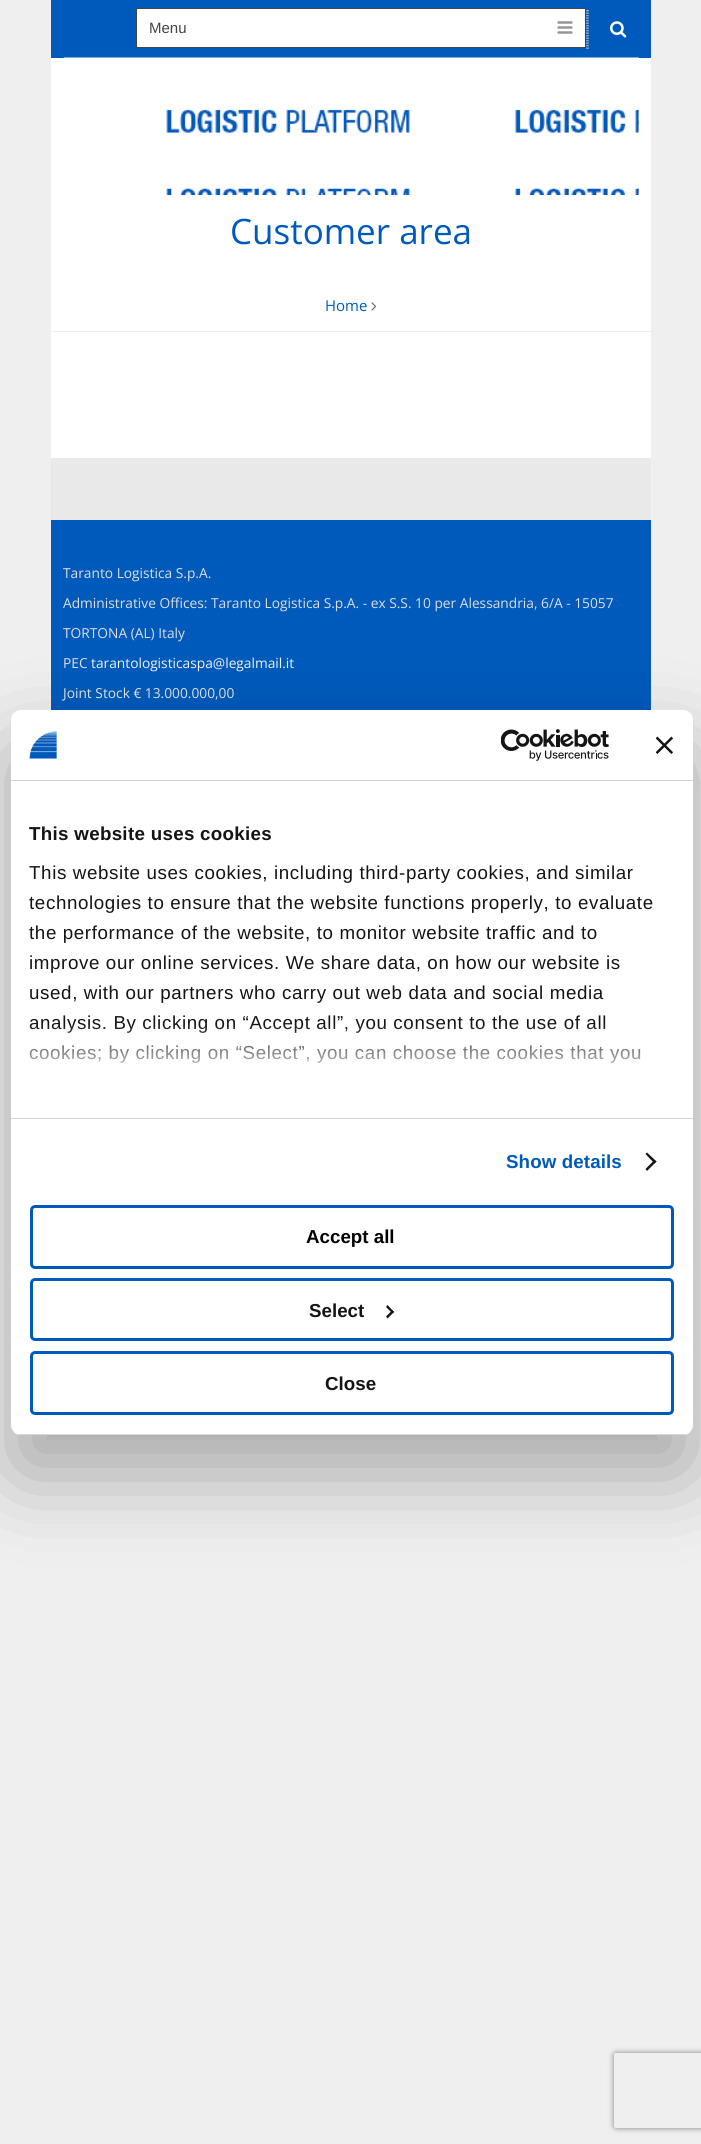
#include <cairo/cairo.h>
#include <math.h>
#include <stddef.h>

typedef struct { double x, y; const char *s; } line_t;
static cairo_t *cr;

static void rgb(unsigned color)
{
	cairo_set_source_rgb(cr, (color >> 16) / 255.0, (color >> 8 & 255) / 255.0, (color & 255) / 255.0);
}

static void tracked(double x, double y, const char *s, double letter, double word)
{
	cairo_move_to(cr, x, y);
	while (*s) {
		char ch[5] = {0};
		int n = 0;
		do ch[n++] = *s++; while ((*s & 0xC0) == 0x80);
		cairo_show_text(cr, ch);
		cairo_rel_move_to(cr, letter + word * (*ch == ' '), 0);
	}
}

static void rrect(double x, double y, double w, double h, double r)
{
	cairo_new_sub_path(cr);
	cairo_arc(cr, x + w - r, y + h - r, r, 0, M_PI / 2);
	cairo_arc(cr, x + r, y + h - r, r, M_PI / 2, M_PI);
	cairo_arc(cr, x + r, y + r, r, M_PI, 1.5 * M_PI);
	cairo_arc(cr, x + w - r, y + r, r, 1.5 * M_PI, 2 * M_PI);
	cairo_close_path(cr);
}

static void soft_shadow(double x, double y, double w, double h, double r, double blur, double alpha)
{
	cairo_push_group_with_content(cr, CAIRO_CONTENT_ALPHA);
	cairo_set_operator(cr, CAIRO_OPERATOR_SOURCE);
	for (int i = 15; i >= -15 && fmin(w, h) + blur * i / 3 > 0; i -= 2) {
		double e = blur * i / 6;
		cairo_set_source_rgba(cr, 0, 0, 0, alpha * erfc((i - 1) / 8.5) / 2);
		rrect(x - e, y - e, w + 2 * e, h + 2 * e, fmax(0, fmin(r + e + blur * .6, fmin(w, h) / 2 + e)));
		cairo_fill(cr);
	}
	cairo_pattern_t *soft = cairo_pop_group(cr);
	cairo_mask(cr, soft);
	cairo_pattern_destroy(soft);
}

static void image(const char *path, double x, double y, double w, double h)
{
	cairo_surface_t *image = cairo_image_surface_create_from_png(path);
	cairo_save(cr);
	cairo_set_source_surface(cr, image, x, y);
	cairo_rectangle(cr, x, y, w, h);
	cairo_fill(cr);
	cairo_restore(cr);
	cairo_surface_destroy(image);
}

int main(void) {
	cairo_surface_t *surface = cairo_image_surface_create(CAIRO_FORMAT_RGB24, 701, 2144);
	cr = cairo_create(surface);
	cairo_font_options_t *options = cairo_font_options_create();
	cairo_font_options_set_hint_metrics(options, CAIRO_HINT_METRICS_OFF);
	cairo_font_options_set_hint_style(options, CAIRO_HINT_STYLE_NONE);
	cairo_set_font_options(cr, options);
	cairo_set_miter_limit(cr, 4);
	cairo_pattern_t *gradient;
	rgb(0xefefef);
	cairo_paint(cr);
	rgb(0xffffff);
	cairo_rectangle(cr, 51, 58, 600, 400);
	cairo_fill(cr);
	rgb(0x005abb);
	cairo_rectangle(cr, 51, 0, 600, 58);
	cairo_fill(cr);
	rgb(0xffffff);
	cairo_rectangle(cr, 136.5, 8.5, 449, 39);
	cairo_fill_preserve(cr);
	rgb(0x444444);
	cairo_set_line_width(cr, 1);
	cairo_stroke(cr);
	image("img/1.png", 557, 21, 16, 13);
	image("img/2.png", 586, 10, 3, 39);
	image("img/3.png", 610, 21, 17, 17);
	image("img/4.png", 63, 57, 576, 138);
	rgb(0xefefef);
	cairo_rectangle(cr, 51, 331, 600, 1);
	cairo_fill(cr);
	image("img/5.png", 371, 302, 6, 9);
	rgb(0xe9e9e9);
	cairo_rectangle(cr, 51, 458, 600, 62);
	cairo_fill(cr);
	rgb(0x005abb);
	cairo_rectangle(cr, 51, 520, 600, 190);
	cairo_fill(cr);
	rgb(0x000000);
	soft_shadow(11, 750, 682, 725, 10, 42.5, 0.3);
	rgb(0xffffff);
	rrect(11, 710, 682, 725, 10);
	cairo_fill(cr);
	rgb(0xd6d6d6);
	cairo_rectangle(cr, 11, 780, 682, 1);
	cairo_fill(cr);
	image("img/6.png", 29, 731, 28, 28);
	image("img/7.png", 501, 729, 108, 32);
	image("img/8.png", 656, 736, 17, 18);
	cairo_rectangle(cr, 11, 1118, 682, 1);
	cairo_fill(cr);
	rgb(0x141414);
	cairo_new_path(cr);
	cairo_move_to(cr, 647, 1152.5);
	cairo_line_to(cr, 656.5, 1161.5);
	cairo_line_to(cr, 654.5, 1163.5);
	cairo_line_to(cr, 645.5, 1154);
	cairo_close_path(cr);
	cairo_fill(cr);
	cairo_new_path(cr);
	cairo_move_to(cr, 654.5, 1160);
	cairo_line_to(cr, 656.5, 1161.5);
	cairo_line_to(cr, 647, 1171);
	cairo_line_to(cr, 645.5, 1169);
	cairo_close_path(cr);
	cairo_fill(cr);
	cairo_save(cr);
	rrect(11, 710, 682, 725, 10);
	cairo_clip(cr);
	rgb(0xd6d6d6);
	cairo_rectangle(cr, 11, 1434, 682, 1);
	cairo_fill(cr);
	cairo_restore(cr);
	rrect(31.5, 1206.5, 641, 61, 3.5);
	rgb(0x005abb);
	cairo_set_line_width(cr, 3);
	cairo_stroke(cr);
	rrect(31.5, 1279.5, 641, 60, 3.5);
	cairo_stroke(cr);
	rgb(0x141414);
	cairo_new_path(cr);
	cairo_move_to(cr, 387.5, 1305);
	cairo_line_to(cr, 394, 1312);
	cairo_line_to(cr, 392.5, 1313.5);
	cairo_line_to(cr, 386, 1307);
	cairo_close_path(cr);
	cairo_fill(cr);
	cairo_new_path(cr);
	cairo_move_to(cr, 392.5, 1310);
	cairo_line_to(cr, 394, 1312);
	cairo_line_to(cr, 387.5, 1318.5);
	cairo_line_to(cr, 386, 1316.5);
	cairo_close_path(cr);
	cairo_fill(cr);
	rrect(31.5, 1352.5, 641, 61, 3.5);
	rgb(0x005abb);
	cairo_stroke(cr);
	cairo_save(cr);
	cairo_set_fill_rule(cr, CAIRO_FILL_RULE_EVEN_ODD);
	cairo_new_path(cr);
	cairo_move_to(cr, 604, 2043);
	cairo_line_to(cr, 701, 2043);
	cairo_line_to(cr, 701, 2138);
	cairo_line_to(cr, 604, 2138);
	cairo_close_path(cr);
	cairo_move_to(cr, 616.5, 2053);
	cairo_line_to(cr, 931.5, 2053);
	cairo_curve_to(cr, 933, 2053, 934, 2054, 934, 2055.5);
	cairo_line_to(cr, 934, 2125.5);
	cairo_curve_to(cr, 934, 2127, 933, 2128, 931.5, 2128);
	cairo_line_to(cr, 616.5, 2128);
	cairo_curve_to(cr, 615, 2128, 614, 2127, 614, 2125.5);
	cairo_line_to(cr, 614, 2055.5);
	cairo_curve_to(cr, 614, 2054, 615, 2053, 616.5, 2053);
	cairo_close_path(cr);
	cairo_clip(cr);
	rgb(0x808080);
	soft_shadow(614, 2053, 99, 75, 2.5, 3, 1);
	cairo_restore(cr);
	cairo_select_font_face(cr, "Liberation Sans", CAIRO_FONT_SLANT_NORMAL, CAIRO_FONT_WEIGHT_NORMAL);
	cairo_set_font_size(cr, 15);
	rgb(0x444444);
	cairo_move_to(cr, 149, 33);
	cairo_show_text(cr, "Menu");
	cairo_select_font_face(cr, "Open Sans", CAIRO_FONT_SLANT_NORMAL, CAIRO_FONT_WEIGHT_NORMAL);
	cairo_set_font_size(cr, 35);
	rgb(0x005abb);
	cairo_move_to(cr, 230, 244);
	cairo_show_text(cr, "Customer area");
	cairo_set_font_size(cr, 15);
	cairo_move_to(cr, 325, 311);
	cairo_show_text(cr, "Home");
	cairo_set_font_size(cr, 13.75);
	rgb(0xdddddd);
	{
		static const line_t items[] = {
			{63, 578, "Taranto Logistica S.p.A."},
			{63, 608, "Administrative Offices: Taranto Logistica S.p.A. - ex S.S. 10 per Alessandria, 6/A - 15057"},
			{63, 638, "TORTONA (AL) Italy"},
			{63, 668, "PEC"},
		};
		for (size_t i = 0; i < sizeof items / sizeof *items; i++) {
			cairo_move_to(cr, items[i].x, items[i].y);
			cairo_show_text(cr, items[i].s);
		}
	}
	rgb(0xefefef);
	cairo_move_to(cr, 91, 668);
	cairo_show_text(cr, "tarantologisticaspa@legalmail.it");
	rgb(0xdddddd);
	cairo_move_to(cr, 63, 698);
	cairo_show_text(cr, "Joint Stock € 13.000.000,00");
	cairo_select_font_face(cr, "Liberation Sans", CAIRO_FONT_SLANT_NORMAL, CAIRO_FONT_WEIGHT_BOLD);
	cairo_set_font_size(cr, 18.75);
	rgb(0x141414);
	tracked(29, 840, "This website uses cookies", 0.3, 0);
	cairo_select_font_face(cr, "Liberation Sans", CAIRO_FONT_SLANT_NORMAL, CAIRO_FONT_WEIGHT_NORMAL);
	{
		static const line_t items[] = {
			{29, 879, "This website uses cookies, including third-party cookies, and similar"},
			{29, 909, "technologies to ensure that the website functions properly, to evaluate"},
			{29, 939, "the performance of the website, to monitor website traffic and to"},
			{29, 969, "improve our online services. We share data, on how our website is"},
			{29, 999, "used, with our partners who carry out web data and social media"},
			{29, 1029, "analysis. By clicking on “Accept all”, you consent to the use of all"},
			{29, 1059, "cookies; by clicking on “Select”, you can choose the cookies that you"},
		};
		for (size_t i = 0; i < sizeof items / sizeof *items; i++) {
			tracked(items[i].x, items[i].y, items[i].s, 0.62, 0);
		}
	}
	gradient = cairo_pattern_create_linear(343, 1118, 343, 1024);
	cairo_pattern_add_color_stop_rgba(gradient, 0, 1, 1, 1, 1);
	cairo_pattern_add_color_stop_rgba(gradient, 0.5, 1, 1, 1, 0.8);
	cairo_pattern_add_color_stop_rgba(gradient, 1, 1, 1, 1, 0);
	cairo_set_source(cr, gradient);
	cairo_pattern_destroy(gradient);
	cairo_rectangle(cr, 29, 1025, 612, 38);
	cairo_fill(cr);
	cairo_select_font_face(cr, "Liberation Sans", CAIRO_FONT_SLANT_NORMAL, CAIRO_FONT_WEIGHT_BOLD);
	rgb(0x005abb);
	tracked(506, 1168, "Show details", 0.1, 0);
	rgb(0x000000);
	cairo_move_to(cr, 306, 1243);
	cairo_show_text(cr, "Accept all");
	rgb(0x141414);
	cairo_move_to(cr, 309, 1317);
	cairo_show_text(cr, "Select");
	cairo_move_to(cr, 325, 1390);
	cairo_show_text(cr, "Close");
	cairo_surface_write_to_png(surface, "page.png");
	cairo_font_options_destroy(options);
	cairo_destroy(cr);
	cairo_surface_destroy(surface);
	return 0;
}
